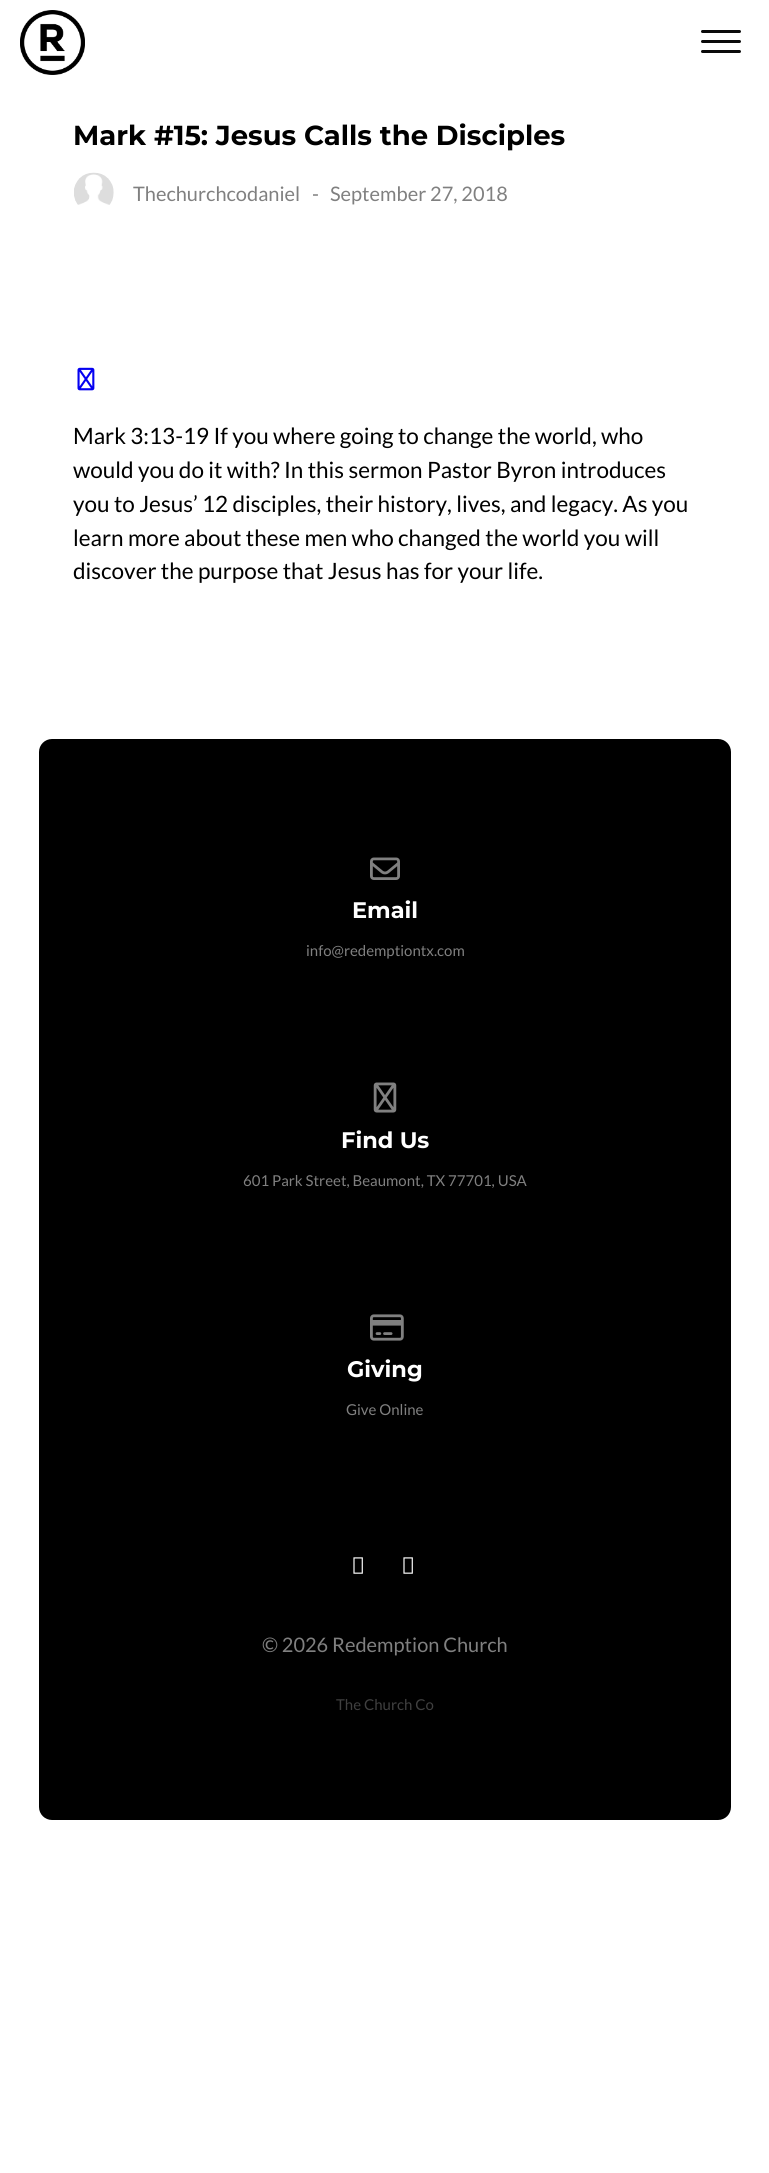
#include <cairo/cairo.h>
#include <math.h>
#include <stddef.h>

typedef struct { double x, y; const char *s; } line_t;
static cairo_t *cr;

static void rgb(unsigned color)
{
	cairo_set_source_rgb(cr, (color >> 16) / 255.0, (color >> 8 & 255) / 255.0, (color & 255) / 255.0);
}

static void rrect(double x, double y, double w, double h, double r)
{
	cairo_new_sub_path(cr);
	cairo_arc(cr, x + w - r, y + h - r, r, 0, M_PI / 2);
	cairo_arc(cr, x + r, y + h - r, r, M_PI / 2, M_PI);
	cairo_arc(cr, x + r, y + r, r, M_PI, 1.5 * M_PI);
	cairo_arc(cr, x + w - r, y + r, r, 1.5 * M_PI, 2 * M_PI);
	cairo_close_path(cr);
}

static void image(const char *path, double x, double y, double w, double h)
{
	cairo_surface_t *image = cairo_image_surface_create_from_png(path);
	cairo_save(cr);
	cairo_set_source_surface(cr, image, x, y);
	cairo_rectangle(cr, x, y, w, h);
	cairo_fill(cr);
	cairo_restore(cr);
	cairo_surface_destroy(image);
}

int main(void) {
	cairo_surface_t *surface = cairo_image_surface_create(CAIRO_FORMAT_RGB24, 769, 2173);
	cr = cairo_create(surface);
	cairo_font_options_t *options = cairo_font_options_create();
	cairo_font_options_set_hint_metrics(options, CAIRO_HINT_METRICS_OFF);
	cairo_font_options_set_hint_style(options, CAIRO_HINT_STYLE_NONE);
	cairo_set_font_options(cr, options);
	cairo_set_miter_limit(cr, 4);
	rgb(0xffffff);
	cairo_paint(cr);
	image("img/1.png", 20, 10, 65, 65);
	rgb(0x0a0a0a);
	rrect(701, 30, 40, 3, 1.5);
	cairo_fill(cr);
	rrect(701, 40, 40, 3, 1.5);
	cairo_fill(cr);
	rrect(701, 50, 40, 3, 1.5);
	cairo_fill(cr);
	image("img/2.png", 74, 172, 40, 33);
	image("img/3.png", 77, 367, 18, 24);
	rgb(0x000000);
	rrect(39, 739, 692, 1081, 13);
	cairo_fill(cr);
	image("img/4.png", 370, 857, 30, 23);
	image("img/5.png", 373, 1082, 24, 31);
	image("img/6.png", 370, 1314, 34, 27);
	image("img/7.png", 353, 1557, 10, 17);
	image("img/7.png", 403, 1557, 10, 17);
	cairo_select_font_face(cr, "Montserrat", CAIRO_FONT_SLANT_NORMAL, CAIRO_FONT_WEIGHT_BOLD);
	cairo_set_font_size(cr, 27.5);
	cairo_move_to(cr, 73, 145);
	cairo_show_text(cr, "Mark #15: Jesus Calls the Disciples");
	cairo_select_font_face(cr, "Lato", CAIRO_FONT_SLANT_NORMAL, CAIRO_FONT_WEIGHT_NORMAL);
	cairo_set_font_size(cr, 20);
	rgb(0x808080);
	{
		static const line_t items[] = {
			{133, 201, "Thechurchcodaniel"},
			{312, 201, "-"},
			{330, 201, "September 27, 2018"},
		};
		for (size_t i = 0; i < sizeof items / sizeof *items; i++) {
			cairo_move_to(cr, items[i].x, items[i].y);
			cairo_show_text(cr, items[i].s);
		}
	}
	cairo_set_font_size(cr, 22.5);
	rgb(0x000000);
	{
		static const line_t items[] = {
			{73, 444, "Mark 3:13-19 If you where going to change the world, who"},
			{73, 478, "would you do it with? In this sermon Pastor Byron introduces"},
			{73, 512, "you to Jesus’ 12 disciples, their history, lives, and legacy. As you"},
			{73, 546, "learn more about these men who changed the world you will"},
			{73, 579, "discover the purpose that Jesus has for your life."},
		};
		for (size_t i = 0; i < sizeof items / sizeof *items; i++) {
			cairo_move_to(cr, items[i].x, items[i].y);
			cairo_show_text(cr, items[i].s);
		}
	}
	cairo_select_font_face(cr, "Montserrat", CAIRO_FONT_SLANT_NORMAL, CAIRO_FONT_WEIGHT_BOLD);
	rgb(0xffffff);
	cairo_move_to(cr, 352, 918);
	cairo_show_text(cr, "Email");
	cairo_select_font_face(cr, "Lato", CAIRO_FONT_SLANT_NORMAL, CAIRO_FONT_WEIGHT_NORMAL);
	cairo_set_font_size(cr, 15);
	rgb(0x808080);
	cairo_move_to(cr, 306, 956);
	cairo_show_text(cr, "info@redemptiontx.com");
	cairo_select_font_face(cr, "Montserrat", CAIRO_FONT_SLANT_NORMAL, CAIRO_FONT_WEIGHT_BOLD);
	cairo_set_font_size(cr, 22.5);
	rgb(0xffffff);
	cairo_move_to(cr, 341, 1148);
	cairo_show_text(cr, "Find Us");
	cairo_select_font_face(cr, "Lato", CAIRO_FONT_SLANT_NORMAL, CAIRO_FONT_WEIGHT_NORMAL);
	cairo_set_font_size(cr, 15);
	rgb(0x808080);
	cairo_move_to(cr, 243, 1186);
	cairo_show_text(cr, "601 Park Street, Beaumont, TX 77701, USA");
	cairo_select_font_face(cr, "Montserrat", CAIRO_FONT_SLANT_NORMAL, CAIRO_FONT_WEIGHT_BOLD);
	cairo_set_font_size(cr, 22.5);
	rgb(0xffffff);
	cairo_move_to(cr, 347, 1377);
	cairo_show_text(cr, "Giving");
	cairo_select_font_face(cr, "Lato", CAIRO_FONT_SLANT_NORMAL, CAIRO_FONT_WEIGHT_NORMAL);
	cairo_set_font_size(cr, 15);
	rgb(0x808080);
	cairo_move_to(cr, 346, 1415);
	cairo_show_text(cr, "Give Online");
	cairo_set_font_size(cr, 20);
	cairo_move_to(cr, 262, 1652);
	cairo_show_text(cr, "© 2026 Redemption Church");
	cairo_set_font_size(cr, 15);
	rgb(0x404040);
	cairo_move_to(cr, 336, 1710);
	cairo_show_text(cr, "The Church Co");
	cairo_surface_write_to_png(surface, "page.png");
	cairo_font_options_destroy(options);
	cairo_destroy(cr);
	cairo_surface_destroy(surface);
	return 0;
}
